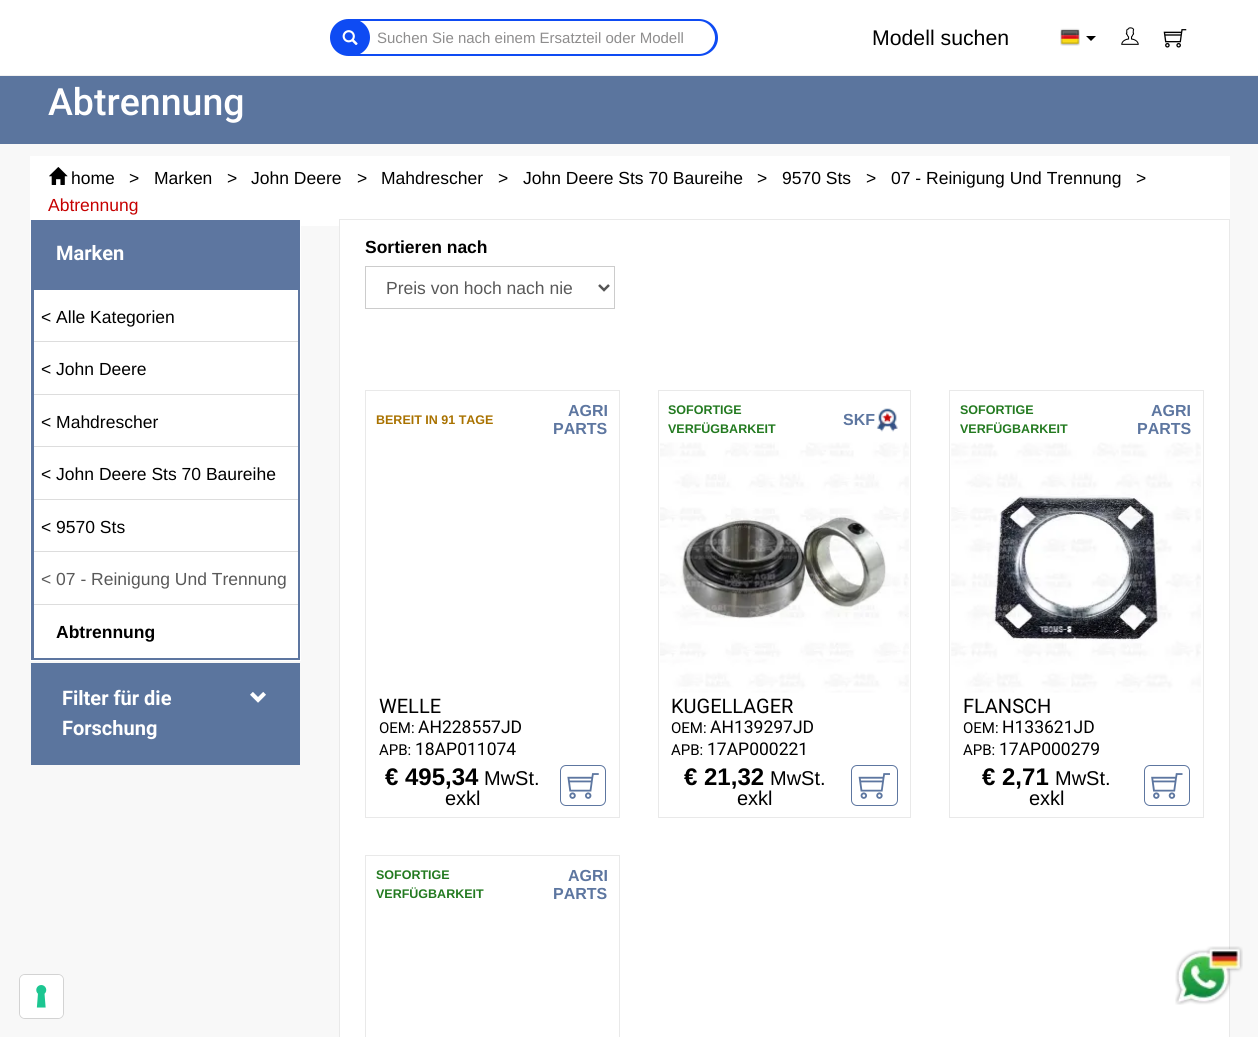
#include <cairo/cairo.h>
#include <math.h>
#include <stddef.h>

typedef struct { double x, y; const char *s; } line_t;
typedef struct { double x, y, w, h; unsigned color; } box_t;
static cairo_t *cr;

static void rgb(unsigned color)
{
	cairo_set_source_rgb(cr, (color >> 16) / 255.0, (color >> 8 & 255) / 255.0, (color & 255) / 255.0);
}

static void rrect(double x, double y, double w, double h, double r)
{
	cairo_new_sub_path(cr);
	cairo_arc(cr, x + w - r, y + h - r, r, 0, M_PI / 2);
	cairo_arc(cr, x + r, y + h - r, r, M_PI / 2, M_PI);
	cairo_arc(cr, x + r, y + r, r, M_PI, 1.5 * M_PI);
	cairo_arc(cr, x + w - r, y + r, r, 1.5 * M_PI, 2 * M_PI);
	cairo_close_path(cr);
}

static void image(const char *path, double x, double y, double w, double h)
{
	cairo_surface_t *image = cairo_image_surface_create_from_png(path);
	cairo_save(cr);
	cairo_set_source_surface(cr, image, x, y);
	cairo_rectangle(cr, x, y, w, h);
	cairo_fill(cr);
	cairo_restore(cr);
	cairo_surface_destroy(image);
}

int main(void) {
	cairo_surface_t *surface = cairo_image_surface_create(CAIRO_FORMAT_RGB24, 1258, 1037);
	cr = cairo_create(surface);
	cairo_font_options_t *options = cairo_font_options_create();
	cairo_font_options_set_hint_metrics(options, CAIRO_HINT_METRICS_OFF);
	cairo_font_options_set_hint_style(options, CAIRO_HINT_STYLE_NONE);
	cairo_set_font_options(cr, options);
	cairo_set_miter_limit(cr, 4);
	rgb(0xf8f8f8);
	cairo_paint(cr);
	rgb(0xffffff);
	cairo_rectangle(cr, 0, 0, 1258, 75);
	cairo_fill(cr);
	rgb(0xf1f1f1);
	cairo_rectangle(cr, 0, 75, 1258, 1);
	cairo_fill(cr);
	rgb(0x0e4bf3);
	cairo_set_fill_rule(cr, CAIRO_FILL_RULE_EVEN_ODD);
	cairo_new_path(cr);
	cairo_move_to(cr, 351, 19);
	cairo_line_to(cr, 699, 19);
	cairo_curve_to(cr, 709, 19, 718, 27, 718, 38);
	cairo_curve_to(cr, 718, 48, 709, 56, 699, 56);
	cairo_line_to(cr, 351, 56);
	cairo_close_path(cr);
	cairo_move_to(cr, 351, 21);
	cairo_line_to(cr, 699, 21);
	cairo_curve_to(cr, 708, 21, 715, 29, 715, 38);
	cairo_curve_to(cr, 715, 46, 708, 54, 699, 54);
	cairo_line_to(cr, 351, 54);
	cairo_close_path(cr);
	cairo_fill(cr);
	rrect(331.5, 20.5, 37, 34, 17);
	cairo_fill_preserve(cr);
	cairo_set_line_width(cr, 3);
	cairo_stroke(cr);
	image("img/1.png", 342, 30, 16, 15);
	image("img/2.png", 1060, 28, 20, 18);
	rgb(0x000000);
	cairo_set_fill_rule(cr, CAIRO_FILL_RULE_WINDING);
	cairo_new_path(cr);
	cairo_move_to(cr, 1086, 36);
	cairo_line_to(cr, 1096, 36);
	cairo_line_to(cr, 1091, 41);
	cairo_close_path(cr);
	cairo_fill(cr);
	image("img/3.png", 1121, 27, 18, 18);
	image("img/4.png", 1163, 29, 24, 19);
	rgb(0x5b759e);
	cairo_rectangle(cr, 0, 76, 1258, 68);
	cairo_fill(cr);
	rgb(0xffffff);
	cairo_rectangle(cr, 30, 156, 1200, 70);
	cairo_fill(cr);
	image("img/5.png", 49, 167, 19, 18);
	{
		static const box_t items[] = {
			{30, 226, 271, 435, 0xffffff},
			{31, 220, 269, 440, 0x5d76a0},
			{34, 290, 264, 104, 0xffffff},
			{34, 341, 264, 1, 0xdddddd},
			{34, 395, 264, 104, 0xffffff},
			{34, 394, 264, 1, 0xdddddd},
			{34, 446, 264, 1, 0xdddddd},
			{34, 500, 264, 104, 0xffffff},
			{34, 499, 264, 1, 0xdddddd},
			{34, 551, 264, 1, 0xdddddd},
			{34, 605, 264, 53, 0xffffff},
			{34, 604, 264, 1, 0xdddddd},
			{31, 663, 269, 102, 0x5b759e},
		};
		for (size_t i = 0; i < sizeof items / sizeof *items; i++) {
			rgb(items[i].color);
			cairo_rectangle(cr, items[i].x, items[i].y, items[i].w, items[i].h);
			cairo_fill(cr);
		}
	}
	image("img/6.png", 250, 692, 16, 11);
	{
		static const box_t items[] = {
			{340, 226, 889, 811, 0xffffff},
			{339, 219, 891, 1, 0xe9e9e9},
			{1229, 219, 1, 818, 0xe9e9e9},
			{339, 219, 1, 818, 0xe9e9e9},
		};
		for (size_t i = 0; i < sizeof items / sizeof *items; i++) {
			rgb(items[i].color);
			cairo_rectangle(cr, items[i].x, items[i].y, items[i].w, items[i].h);
			cairo_fill(cr);
		}
	}
	cairo_rectangle(cr, 365.5, 266.5, 249, 42);
	rgb(0xcccccc);
	cairo_set_line_width(cr, 1);
	cairo_stroke(cr);
	cairo_new_path(cr);
	cairo_move_to(cr, 599, 285);
	cairo_line_to(cr, 604, 290);
	cairo_line_to(cr, 609, 285);
	rgb(0x555555);
	cairo_set_line_width(cr, 2.5);
	cairo_stroke(cr);
	cairo_rectangle(cr, 365.5, 390.5, 254, 427);
	rgb(0xe9e9e9);
	cairo_set_line_width(cr, 1);
	cairo_stroke(cr);
	rrect(560.5, 765.5, 45, 40, 5.5);
	rgb(0x5d76a0);
	cairo_stroke(cr);
	image("img/7.png", 567, 773, 32, 26);
	cairo_rectangle(cr, 658.5, 390.5, 252, 427);
	rgb(0xe9e9e9);
	cairo_stroke(cr);
	image("img/8.png", 876, 408, 22, 24);
	image("img/9.png", 660, 442, 249, 251);
	rrect(851.5, 765.5, 46, 40, 5.5);
	rgb(0x5d76a0);
	cairo_stroke(cr);
	image("img/10.png", 858, 773, 32, 26);
	cairo_rectangle(cr, 949.5, 390.5, 254, 427);
	rgb(0xe9e9e9);
	cairo_stroke(cr);
	image("img/11.png", 951, 442, 250, 251);
	rrect(1144.5, 765.5, 45, 40, 5.5);
	rgb(0x5d76a0);
	cairo_stroke(cr);
	image("img/12.png", 1151, 773, 32, 26);
	cairo_rectangle(cr, 365.5, 855.5, 254, 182);
	rgb(0xe9e9e9);
	cairo_stroke(cr);
	rrect(19.5, 974.5, 44, 44, 5.5);
	rgb(0xd3d3d3);
	cairo_stroke(cr);
	rgb(0xffffff);
	rrect(20, 975, 43, 43, 5);
	cairo_fill(cr);
	image("img/13.png", 36, 985, 11, 23);
	image("img/14.png", 1175, 946, 68, 59);
	cairo_select_font_face(cr, "Liberation Sans", CAIRO_FONT_SLANT_NORMAL, CAIRO_FONT_WEIGHT_NORMAL);
	cairo_set_font_size(cr, 15);
	rgb(0x8e8d8d);
	cairo_move_to(cr, 377, 43);
	cairo_show_text(cr, "Suchen Sie nach einem Ersatzteil oder Modell");
	cairo_set_font_size(cr, 21.25);
	rgb(0x000000);
	cairo_move_to(cr, 872, 45);
	cairo_show_text(cr, "Modell suchen");
	cairo_select_font_face(cr, "Roboto Medium", CAIRO_FONT_SLANT_NORMAL, CAIRO_FONT_WEIGHT_NORMAL);
	cairo_set_font_size(cr, 37.5);
	rgb(0xffffff);
	cairo_move_to(cr, 48, 115);
	cairo_show_text(cr, "Abtrennung");
	cairo_select_font_face(cr, "Liberation Sans", CAIRO_FONT_SLANT_NORMAL, CAIRO_FONT_WEIGHT_NORMAL);
	cairo_set_font_size(cr, 17.5);
	rgb(0x000000);
	{
		static const line_t items[] = {
			{71, 184, "home"},
			{129, 184, ">"},
			{154, 184, "Marken"},
			{227, 184, ">"},
			{251, 184, "John Deere"},
			{357, 184, ">"},
			{381, 184, "Mahdrescher"},
			{498, 184, ">"},
			{523, 184, "John Deere Sts 70 Baureihe"},
			{757, 184, ">"},
			{782, 184, "9570 Sts"},
			{866, 184, ">"},
			{891, 184, "07 - Reinigung Und Trennung"},
			{1136, 184, ">"},
		};
		for (size_t i = 0; i < sizeof items / sizeof *items; i++) {
			cairo_move_to(cr, items[i].x, items[i].y);
			cairo_show_text(cr, items[i].s);
		}
	}
	rgb(0xc60000);
	cairo_move_to(cr, 48, 211);
	cairo_show_text(cr, "Abtrennung");
	cairo_select_font_face(cr, "Roboto", CAIRO_FONT_SLANT_NORMAL, CAIRO_FONT_WEIGHT_BOLD);
	cairo_set_font_size(cr, 20);
	rgb(0xffffff);
	cairo_move_to(cr, 56, 260);
	cairo_show_text(cr, "Marken");
	cairo_select_font_face(cr, "Liberation Sans", CAIRO_FONT_SLANT_NORMAL, CAIRO_FONT_WEIGHT_NORMAL);
	cairo_set_font_size(cr, 17.5);
	rgb(0x000000);
	{
		static const line_t items[] = {
			{41, 323, "< Alle Kategorien"},
			{41, 375, "< John Deere"},
			{41, 428, "< Mahdrescher"},
			{41, 480, "< John Deere Sts 70 Baureihe"},
			{41, 533, "< 9570 Sts"},
		};
		for (size_t i = 0; i < sizeof items / sizeof *items; i++) {
			cairo_move_to(cr, items[i].x, items[i].y);
			cairo_show_text(cr, items[i].s);
		}
	}
	rgb(0x595959);
	cairo_move_to(cr, 41, 585);
	cairo_show_text(cr, "< 07 - Reinigung Und Trennung");
	cairo_select_font_face(cr, "Liberation Sans", CAIRO_FONT_SLANT_NORMAL, CAIRO_FONT_WEIGHT_BOLD);
	rgb(0x000000);
	cairo_move_to(cr, 56, 638);
	cairo_show_text(cr, "Abtrennung");
	cairo_select_font_face(cr, "Roboto", CAIRO_FONT_SLANT_NORMAL, CAIRO_FONT_WEIGHT_BOLD);
	cairo_set_font_size(cr, 20);
	rgb(0xffffff);
	cairo_move_to(cr, 62, 705);
	cairo_show_text(cr, "Filter für die");
	cairo_move_to(cr, 62, 735);
	cairo_show_text(cr, "Forschung");
	cairo_select_font_face(cr, "Liberation Sans", CAIRO_FONT_SLANT_NORMAL, CAIRO_FONT_WEIGHT_BOLD);
	cairo_set_font_size(cr, 17.5);
	rgb(0x000000);
	cairo_move_to(cr, 365, 253);
	cairo_show_text(cr, "Sortieren nach");
	cairo_select_font_face(cr, "Liberation Sans", CAIRO_FONT_SLANT_NORMAL, CAIRO_FONT_WEIGHT_NORMAL);
	rgb(0x595959);
	cairo_move_to(cr, 386, 294);
	cairo_show_text(cr, "Preis von hoch nach nie");
	cairo_select_font_face(cr, "Liberation Sans", CAIRO_FONT_SLANT_NORMAL, CAIRO_FONT_WEIGHT_BOLD);
	cairo_set_font_size(cr, 12.5);
	rgb(0xa97200);
	cairo_move_to(cr, 376, 424);
	cairo_show_text(cr, "BEREIT IN 91 TAGE");
	cairo_set_font_size(cr, 16);
	rgb(0x5d76a0);
	cairo_move_to(cr, 568, 416);
	cairo_show_text(cr, "AGRI");
	cairo_move_to(cr, 553, 434);
	cairo_show_text(cr, "PARTS");
	cairo_select_font_face(cr, "Roboto", CAIRO_FONT_SLANT_NORMAL, CAIRO_FONT_WEIGHT_NORMAL);
	cairo_set_font_size(cr, 20);
	rgb(0x000000);
	cairo_move_to(cr, 379, 713);
	cairo_show_text(cr, "WELLE");
	cairo_set_font_size(cr, 15);
	cairo_move_to(cr, 379, 733);
	cairo_show_text(cr, "OEM:");
	cairo_set_font_size(cr, 17.5);
	cairo_move_to(cr, 418, 733);
	cairo_show_text(cr, "AH228557JD");
	cairo_set_font_size(cr, 15);
	cairo_move_to(cr, 379, 755);
	cairo_show_text(cr, "APB:");
	cairo_set_font_size(cr, 17.5);
	cairo_move_to(cr, 415, 755);
	cairo_show_text(cr, "18AP011074");
	cairo_select_font_face(cr, "Liberation Sans", CAIRO_FONT_SLANT_NORMAL, CAIRO_FONT_WEIGHT_BOLD);
	cairo_set_font_size(cr, 24);
	cairo_move_to(cr, 385, 785);
	cairo_show_text(cr, "€ 495,34");
	cairo_select_font_face(cr, "Liberation Sans", CAIRO_FONT_SLANT_NORMAL, CAIRO_FONT_WEIGHT_NORMAL);
	cairo_set_font_size(cr, 20);
	cairo_move_to(cr, 484, 785);
	cairo_show_text(cr, "MwSt.");
	cairo_move_to(cr, 445, 805);
	cairo_show_text(cr, "exkl");
	cairo_select_font_face(cr, "Liberation Sans", CAIRO_FONT_SLANT_NORMAL, CAIRO_FONT_WEIGHT_BOLD);
	cairo_set_font_size(cr, 12.5);
	rgb(0x237a20);
	cairo_move_to(cr, 668, 414);
	cairo_show_text(cr, "SOFORTIGE");
	cairo_move_to(cr, 668, 433);
	cairo_show_text(cr, "VERFÜGBARKEIT");
	cairo_set_font_size(cr, 16);
	rgb(0x5d76a0);
	cairo_move_to(cr, 843, 425);
	cairo_show_text(cr, "SKF");
	cairo_select_font_face(cr, "Roboto", CAIRO_FONT_SLANT_NORMAL, CAIRO_FONT_WEIGHT_NORMAL);
	cairo_set_font_size(cr, 20);
	rgb(0x000000);
	cairo_move_to(cr, 671, 713);
	cairo_show_text(cr, "KUGELLAGER");
	cairo_set_font_size(cr, 15);
	cairo_move_to(cr, 671, 733);
	cairo_show_text(cr, "OEM:");
	cairo_set_font_size(cr, 17.5);
	cairo_move_to(cr, 710, 733);
	cairo_show_text(cr, "AH139297JD");
	cairo_set_font_size(cr, 15);
	cairo_move_to(cr, 671, 755);
	cairo_show_text(cr, "APB:");
	cairo_set_font_size(cr, 17.5);
	cairo_move_to(cr, 707, 755);
	cairo_show_text(cr, "17AP000221");
	cairo_select_font_face(cr, "Liberation Sans", CAIRO_FONT_SLANT_NORMAL, CAIRO_FONT_WEIGHT_BOLD);
	cairo_set_font_size(cr, 24);
	cairo_move_to(cr, 684, 785);
	cairo_show_text(cr, "€ 21,32");
	cairo_select_font_face(cr, "Liberation Sans", CAIRO_FONT_SLANT_NORMAL, CAIRO_FONT_WEIGHT_NORMAL);
	cairo_set_font_size(cr, 20);
	cairo_move_to(cr, 770, 785);
	cairo_show_text(cr, "MwSt.");
	cairo_move_to(cr, 737, 805);
	cairo_show_text(cr, "exkl");
	cairo_select_font_face(cr, "Liberation Sans", CAIRO_FONT_SLANT_NORMAL, CAIRO_FONT_WEIGHT_BOLD);
	cairo_set_font_size(cr, 12.5);
	rgb(0x237a20);
	cairo_move_to(cr, 960, 414);
	cairo_show_text(cr, "SOFORTIGE");
	cairo_move_to(cr, 960, 433);
	cairo_show_text(cr, "VERFÜGBARKEIT");
	cairo_set_font_size(cr, 16);
	rgb(0x5d76a0);
	cairo_move_to(cr, 1151, 416);
	cairo_show_text(cr, "AGRI");
	cairo_move_to(cr, 1137, 434);
	cairo_show_text(cr, "PARTS");
	cairo_select_font_face(cr, "Roboto", CAIRO_FONT_SLANT_NORMAL, CAIRO_FONT_WEIGHT_NORMAL);
	cairo_set_font_size(cr, 20);
	rgb(0x000000);
	cairo_move_to(cr, 963, 713);
	cairo_show_text(cr, "FLANSCH");
	cairo_set_font_size(cr, 15);
	cairo_move_to(cr, 963, 733);
	cairo_show_text(cr, "OEM:");
	cairo_set_font_size(cr, 17.5);
	cairo_move_to(cr, 1002, 733);
	cairo_show_text(cr, "H133621JD");
	cairo_set_font_size(cr, 15);
	cairo_move_to(cr, 963, 755);
	cairo_show_text(cr, "APB:");
	cairo_set_font_size(cr, 17.5);
	cairo_move_to(cr, 999, 755);
	cairo_show_text(cr, "17AP000279");
	cairo_select_font_face(cr, "Liberation Sans", CAIRO_FONT_SLANT_NORMAL, CAIRO_FONT_WEIGHT_BOLD);
	cairo_set_font_size(cr, 24);
	cairo_move_to(cr, 982, 785);
	cairo_show_text(cr, "€ 2,71");
	cairo_select_font_face(cr, "Liberation Sans", CAIRO_FONT_SLANT_NORMAL, CAIRO_FONT_WEIGHT_NORMAL);
	cairo_set_font_size(cr, 20);
	cairo_move_to(cr, 1055, 785);
	cairo_show_text(cr, "MwSt.");
	cairo_move_to(cr, 1029, 805);
	cairo_show_text(cr, "exkl");
	cairo_select_font_face(cr, "Liberation Sans", CAIRO_FONT_SLANT_NORMAL, CAIRO_FONT_WEIGHT_BOLD);
	cairo_set_font_size(cr, 12.5);
	rgb(0x237a20);
	cairo_move_to(cr, 376, 879);
	cairo_show_text(cr, "SOFORTIGE");
	cairo_move_to(cr, 376, 898);
	cairo_show_text(cr, "VERFÜGBARKEIT");
	cairo_set_font_size(cr, 16);
	rgb(0x5d76a0);
	cairo_move_to(cr, 568, 881);
	cairo_show_text(cr, "AGRI");
	cairo_move_to(cr, 553, 899);
	cairo_show_text(cr, "PARTS");
	cairo_surface_write_to_png(surface, "page.png");
	cairo_font_options_destroy(options);
	cairo_destroy(cr);
	cairo_surface_destroy(surface);
	return 0;
}
